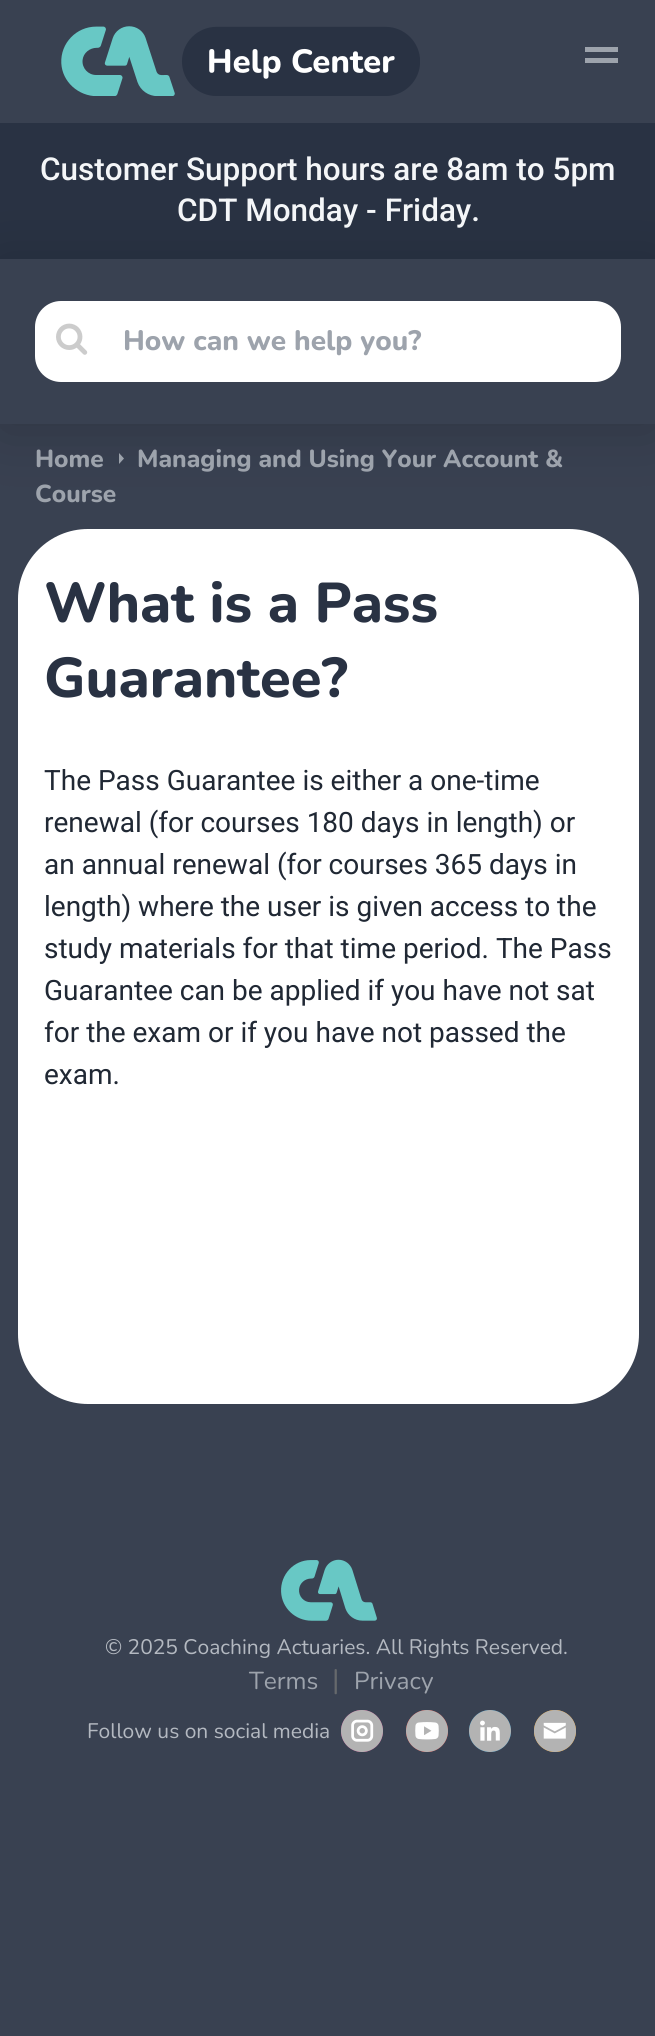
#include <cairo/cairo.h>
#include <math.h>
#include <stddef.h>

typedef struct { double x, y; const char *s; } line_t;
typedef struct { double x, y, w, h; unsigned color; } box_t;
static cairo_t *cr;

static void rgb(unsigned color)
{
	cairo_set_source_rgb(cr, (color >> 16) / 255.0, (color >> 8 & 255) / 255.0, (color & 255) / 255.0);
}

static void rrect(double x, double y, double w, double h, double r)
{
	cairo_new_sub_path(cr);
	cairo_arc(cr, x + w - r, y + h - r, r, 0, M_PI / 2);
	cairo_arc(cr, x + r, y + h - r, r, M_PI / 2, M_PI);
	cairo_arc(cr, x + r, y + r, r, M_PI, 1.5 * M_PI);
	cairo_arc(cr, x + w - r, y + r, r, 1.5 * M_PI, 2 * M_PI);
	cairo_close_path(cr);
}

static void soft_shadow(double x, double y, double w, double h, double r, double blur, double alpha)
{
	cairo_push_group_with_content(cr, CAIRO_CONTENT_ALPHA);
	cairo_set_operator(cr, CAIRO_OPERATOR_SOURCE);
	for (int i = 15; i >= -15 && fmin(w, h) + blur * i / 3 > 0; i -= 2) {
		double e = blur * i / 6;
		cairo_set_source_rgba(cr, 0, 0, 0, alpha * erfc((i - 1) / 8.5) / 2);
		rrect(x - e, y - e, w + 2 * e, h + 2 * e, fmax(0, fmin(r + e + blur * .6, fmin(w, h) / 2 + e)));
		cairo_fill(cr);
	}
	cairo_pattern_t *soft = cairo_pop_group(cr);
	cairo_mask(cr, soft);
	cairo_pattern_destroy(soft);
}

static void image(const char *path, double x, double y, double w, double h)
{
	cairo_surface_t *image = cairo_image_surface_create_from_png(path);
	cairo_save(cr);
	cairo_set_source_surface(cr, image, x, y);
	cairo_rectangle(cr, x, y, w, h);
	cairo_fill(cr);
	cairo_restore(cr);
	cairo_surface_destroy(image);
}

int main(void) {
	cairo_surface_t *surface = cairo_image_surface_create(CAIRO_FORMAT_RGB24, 655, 2036);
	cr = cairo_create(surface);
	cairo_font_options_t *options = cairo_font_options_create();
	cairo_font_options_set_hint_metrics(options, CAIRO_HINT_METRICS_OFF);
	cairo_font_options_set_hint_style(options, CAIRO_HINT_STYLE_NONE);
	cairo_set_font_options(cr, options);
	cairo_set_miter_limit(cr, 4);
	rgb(0x394151);
	cairo_paint(cr);
	image("img/1.png", 61, 26, 359, 70);
	{
		static const box_t items[] = {
			{585, 47, 33, 5, 0x9da3ac},
			{585, 58, 33, 5, 0x9da3ac},
			{0, 123, 655, 136, 0x293243},
		};
		for (size_t i = 0; i < sizeof items / sizeof *items; i++) {
			rgb(items[i].color);
			cairo_rectangle(cr, items[i].x, items[i].y, items[i].w, items[i].h);
			cairo_fill(cr);
		}
	}
	rgb(0x000000);
	soft_shadow(0, 266, 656, 165, 0, 30.5, 0.18);
	rgb(0x394151);
	cairo_rectangle(cr, 0, 259, 655, 165);
	cairo_fill(cr);
	rgb(0xffffff);
	rrect(35, 301, 586, 81, 26);
	cairo_fill(cr);
	image("img/2.png", 56, 323, 32, 32);
	rgb(0x9da3ac);
	cairo_new_path(cr);
	cairo_move_to(cr, 119, 464);
	cairo_line_to(cr, 119, 453);
	cairo_line_to(cr, 124, 458.5);
	cairo_close_path(cr);
	cairo_fill(cr);
	rgb(0xffffff);
	rrect(18, 529, 621, 875, 70);
	cairo_fill(cr);
	image("img/3.png", 281, 1559, 96, 62);
	image("img/4.png", 341, 1710, 42, 42);
	image("img/5.png", 406, 1710, 42, 42);
	image("img/6.png", 469, 1710, 42, 42);
	image("img/7.png", 534, 1710, 42, 42);
	cairo_select_font_face(cr, "Roboto Medium", CAIRO_FONT_SLANT_NORMAL, CAIRO_FONT_WEIGHT_NORMAL);
	cairo_set_font_size(cr, 31.5);
	rgb(0xf4f6f8);
	cairo_move_to(cr, 40, 180);
	cairo_show_text(cr, "Customer Support hours are 8am to 5pm");
	cairo_move_to(cr, 177, 221);
	cairo_show_text(cr, "CDT Monday - Friday.");
	cairo_select_font_face(cr, "Nunito ExtraBold", CAIRO_FONT_SLANT_NORMAL, CAIRO_FONT_WEIGHT_NORMAL);
	cairo_set_font_size(cr, 28);
	rgb(0x9da3ac);
	cairo_move_to(cr, 123, 350);
	cairo_show_text(cr, "How can we help you?");
	cairo_set_font_size(cr, 24.5);
	{
		static const line_t items[] = {
			{35, 467, "Home"},
			{137, 467, "Managing and Using Your Account &"},
			{35, 502, "Course"},
		};
		for (size_t i = 0; i < sizeof items / sizeof *items; i++) {
			cairo_move_to(cr, items[i].x, items[i].y);
			cairo_show_text(cr, items[i].s);
		}
	}
	cairo_set_font_size(cr, 56);
	rgb(0x293243);
	cairo_move_to(cr, 44, 622);
	cairo_show_text(cr, "What is a Pass");
	cairo_move_to(cr, 44, 697);
	cairo_show_text(cr, "Guarantee?");
	cairo_select_font_face(cr, "Roboto", CAIRO_FONT_SLANT_NORMAL, CAIRO_FONT_WEIGHT_NORMAL);
	cairo_set_font_size(cr, 28);
	rgb(0x202834);
	{
		static const line_t items[] = {
			{44, 790, "The Pass Guarantee is either a one-time"},
			{44, 832, "renewal (for courses 180 days in length) or"},
			{44, 874, "an annual renewal (for courses 365 days in"},
			{44, 916, "length) where the user is given access to the"},
			{44, 958, "study materials for that time period. The Pass"},
			{44, 1000, "Guarantee can be applied if you have not sat"},
			{44, 1042, "for the exam or if you have not passed the"},
			{44, 1084, "exam."},
		};
		for (size_t i = 0; i < sizeof items / sizeof *items; i++) {
			cairo_move_to(cr, items[i].x, items[i].y);
			cairo_show_text(cr, items[i].s);
		}
	}
	cairo_select_font_face(cr, "Nunito", CAIRO_FONT_SLANT_NORMAL, CAIRO_FONT_WEIGHT_NORMAL);
	cairo_set_font_size(cr, 21);
	rgb(0xb4b9c1);
	cairo_move_to(cr, 105, 1654);
	cairo_show_text(cr, "© 2025 Coaching Actuaries. All Rights Reserved.");
	cairo_set_font_size(cr, 24.5);
	rgb(0x9da3ac);
	cairo_move_to(cr, 249, 1689);
	cairo_show_text(cr, "Terms");
	cairo_set_font_size(cr, 28);
	rgb(0x66696c);
	cairo_move_to(cr, 332, 1689);
	cairo_show_text(cr, "|");
	cairo_set_font_size(cr, 24.5);
	rgb(0x9da3ac);
	cairo_move_to(cr, 354, 1689);
	cairo_show_text(cr, "Privacy");
	cairo_set_font_size(cr, 21);
	rgb(0xb4b9c1);
	cairo_move_to(cr, 87, 1738);
	cairo_show_text(cr, "Follow us on social media");
	cairo_surface_write_to_png(surface, "page.png");
	cairo_font_options_destroy(options);
	cairo_destroy(cr);
	cairo_surface_destroy(surface);
	return 0;
}
